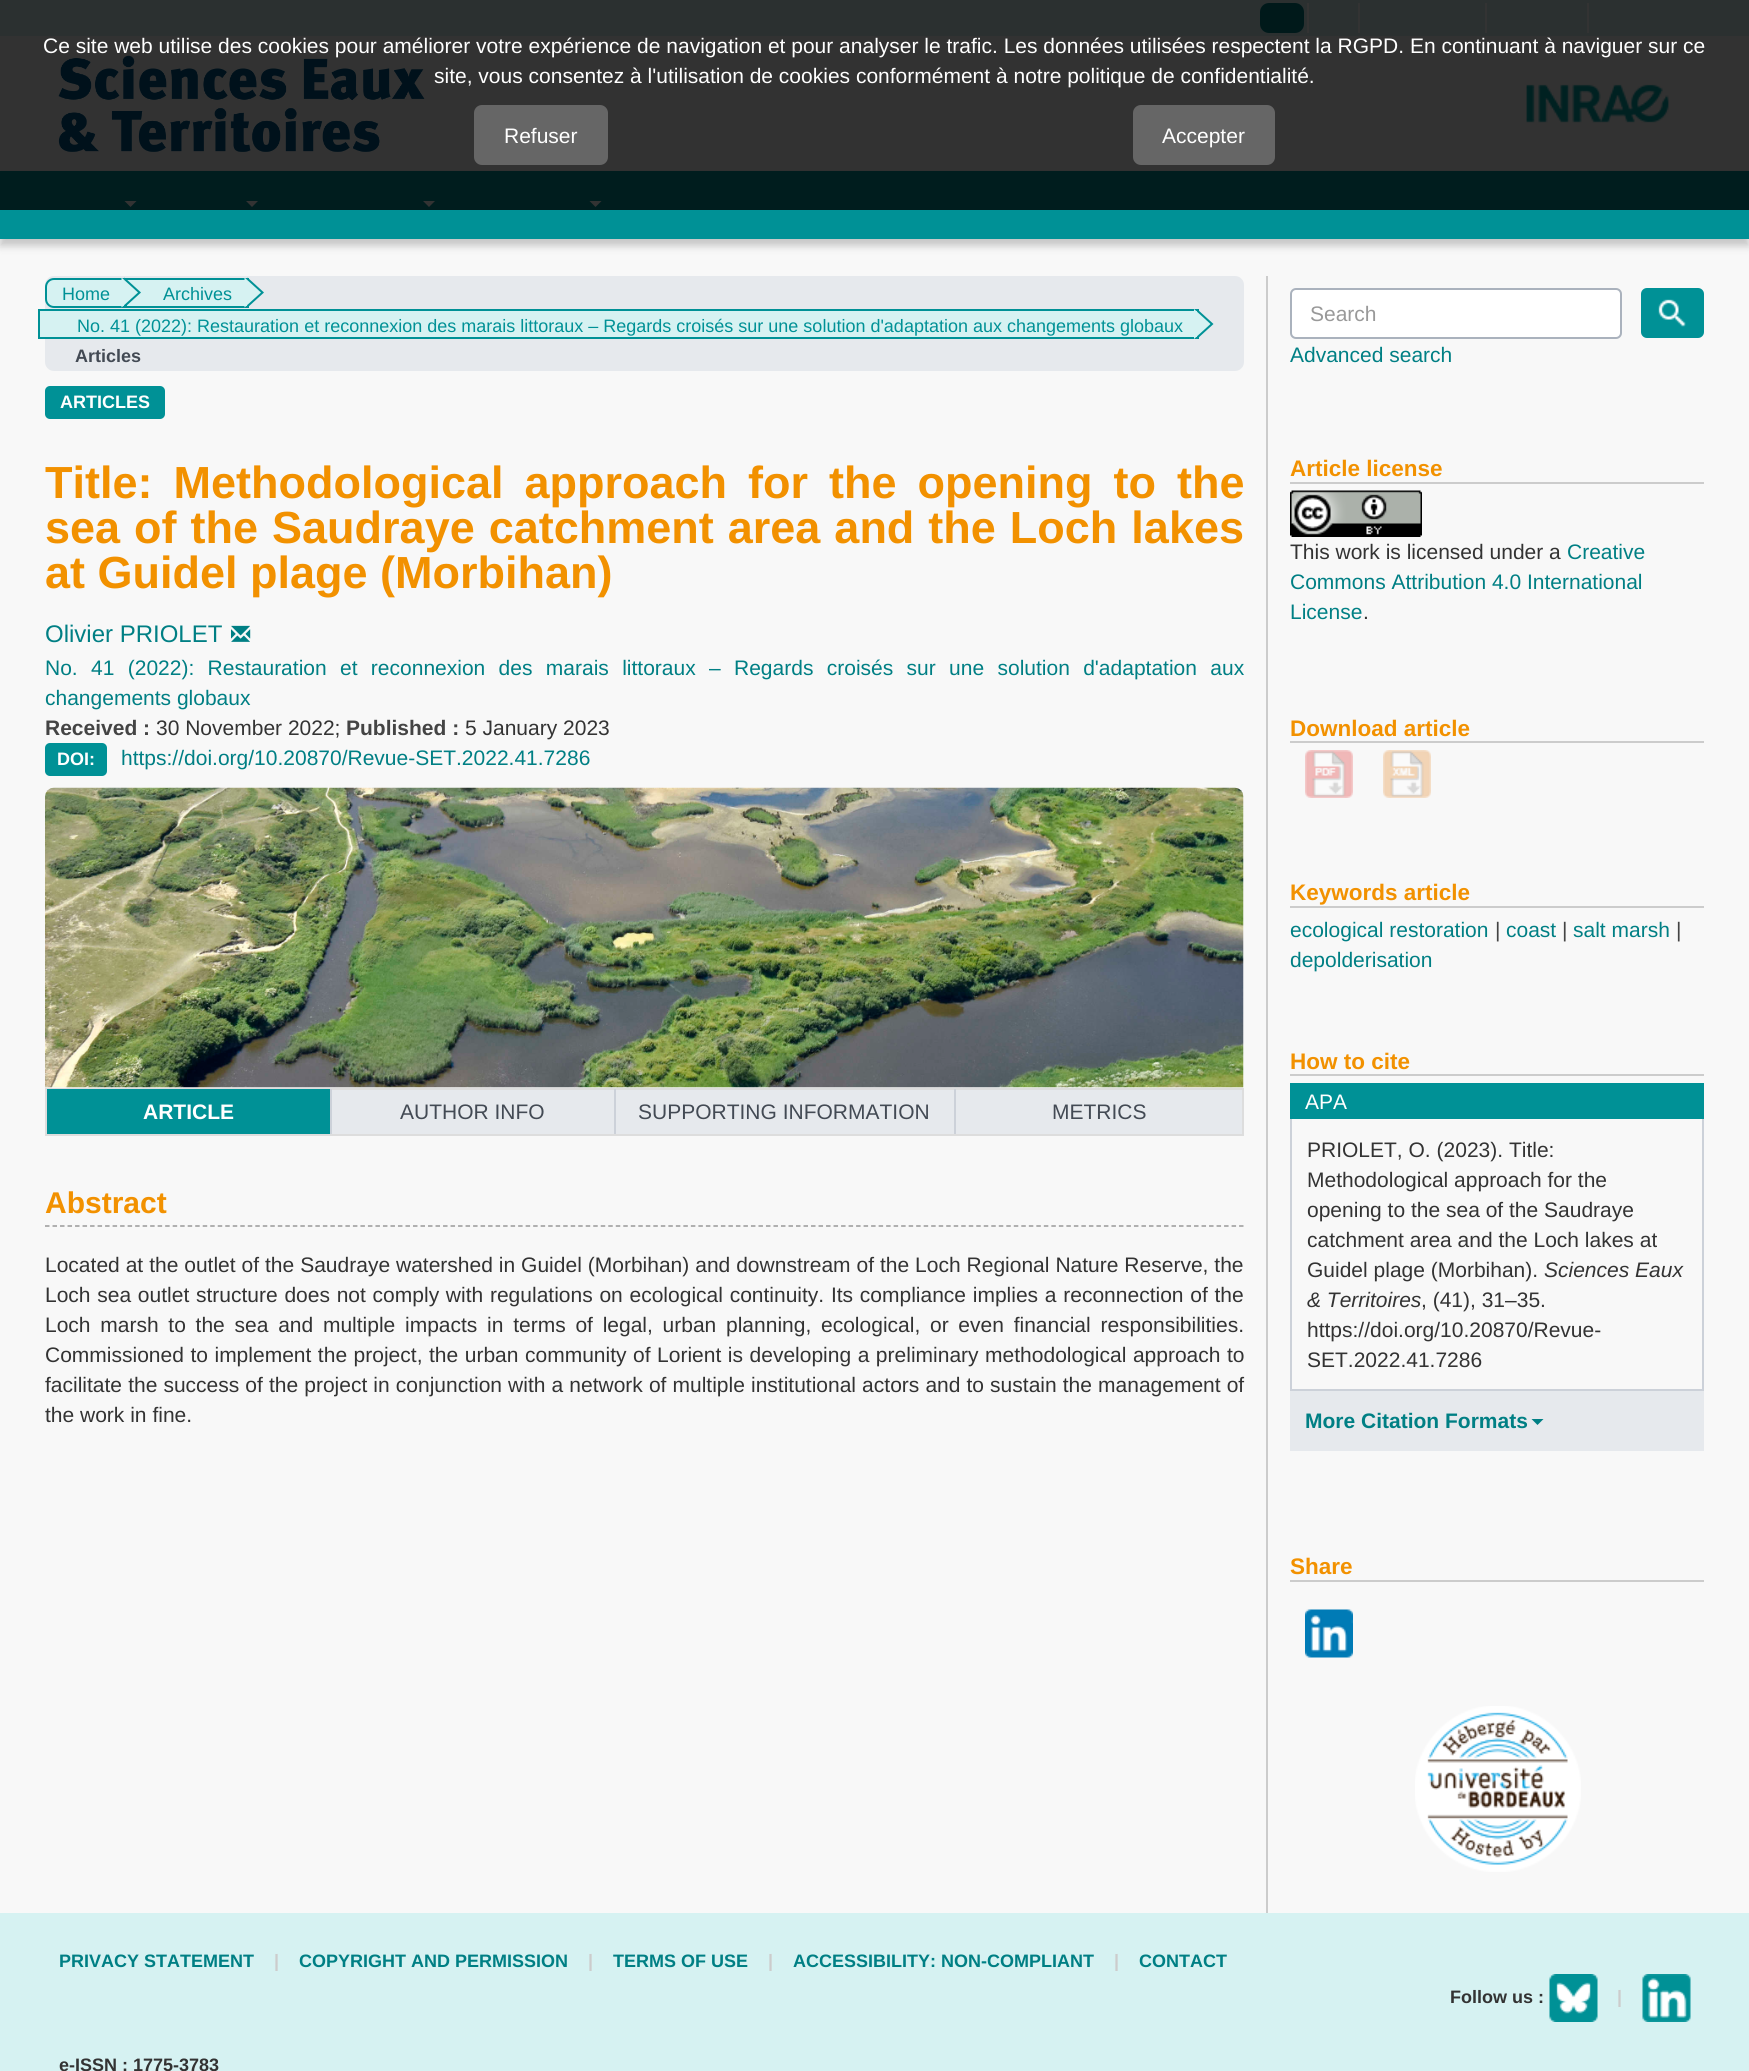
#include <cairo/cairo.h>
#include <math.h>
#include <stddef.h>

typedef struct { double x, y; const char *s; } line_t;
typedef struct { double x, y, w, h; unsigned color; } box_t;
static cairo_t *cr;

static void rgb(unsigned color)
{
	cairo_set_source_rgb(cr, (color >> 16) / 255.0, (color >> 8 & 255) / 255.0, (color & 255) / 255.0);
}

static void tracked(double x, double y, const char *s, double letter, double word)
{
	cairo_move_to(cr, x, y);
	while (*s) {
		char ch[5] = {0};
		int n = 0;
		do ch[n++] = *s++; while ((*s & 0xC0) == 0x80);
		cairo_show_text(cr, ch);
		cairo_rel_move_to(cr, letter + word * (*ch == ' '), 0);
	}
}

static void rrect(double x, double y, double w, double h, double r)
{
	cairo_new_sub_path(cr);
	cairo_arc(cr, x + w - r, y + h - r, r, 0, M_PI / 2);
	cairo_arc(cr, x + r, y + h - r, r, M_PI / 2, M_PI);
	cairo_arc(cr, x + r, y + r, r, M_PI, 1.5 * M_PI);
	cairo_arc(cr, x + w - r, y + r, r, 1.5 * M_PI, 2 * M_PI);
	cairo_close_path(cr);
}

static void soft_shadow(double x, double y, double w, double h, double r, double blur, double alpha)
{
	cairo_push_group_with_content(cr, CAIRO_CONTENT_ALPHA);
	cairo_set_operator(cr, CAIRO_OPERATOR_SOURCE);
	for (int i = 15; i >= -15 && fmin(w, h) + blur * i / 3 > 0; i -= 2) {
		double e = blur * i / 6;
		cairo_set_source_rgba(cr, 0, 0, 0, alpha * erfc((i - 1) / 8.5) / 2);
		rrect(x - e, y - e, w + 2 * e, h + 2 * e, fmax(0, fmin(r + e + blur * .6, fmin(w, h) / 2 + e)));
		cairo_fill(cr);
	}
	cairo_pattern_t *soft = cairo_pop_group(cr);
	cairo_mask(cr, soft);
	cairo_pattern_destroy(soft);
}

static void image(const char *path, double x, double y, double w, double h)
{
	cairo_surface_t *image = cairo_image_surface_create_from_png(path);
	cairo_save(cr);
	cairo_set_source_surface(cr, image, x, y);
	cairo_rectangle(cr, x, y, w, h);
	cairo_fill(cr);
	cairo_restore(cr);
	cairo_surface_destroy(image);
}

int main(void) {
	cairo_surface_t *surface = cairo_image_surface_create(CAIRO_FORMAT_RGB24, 1749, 2071);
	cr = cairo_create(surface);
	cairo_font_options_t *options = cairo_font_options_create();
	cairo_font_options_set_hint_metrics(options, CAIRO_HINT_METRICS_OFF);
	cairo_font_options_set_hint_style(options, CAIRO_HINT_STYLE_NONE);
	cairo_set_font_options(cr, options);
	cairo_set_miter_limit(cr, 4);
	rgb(0xf8f8f8);
	cairo_paint(cr);
	rgb(0xd6f2f2);
	cairo_rectangle(cr, 0, 0, 1749, 36);
	cairo_fill(cr);
	rgb(0xffffff);
	cairo_rectangle(cr, 1307, 3, 2, 30);
	cairo_fill(cr);
	rgb(0x007f84);
	rrect(1260, 3, 44, 30, 9);
	cairo_fill(cr);
	{
		static const box_t items[] = {
			{1358, 3, 2, 30, 0xffffff},
			{1485, 3, 2, 30, 0xffffff},
			{1587, 3, 2, 30, 0xffffff},
		};
		for (size_t i = 0; i < sizeof items / sizeof *items; i++) {
			rgb(items[i].color);
			cairo_rectangle(cr, items[i].x, items[i].y, items[i].w, items[i].h);
			cairo_fill(cr);
		}
	}
	image("img/1.png", 58, 55, 367, 98);
	image("img/2.png", 1526, 84, 143, 39);
	rgb(0x000000);
	soft_shadow(0, 179, 1749, 67, 0, 4, 0.2);
	rgb(0x009196);
	cairo_rectangle(cr, 0, 171, 1749, 68);
	cairo_fill(cr);
	rgb(0xffffff);
	cairo_new_path(cr);
	cairo_move_to(cr, 124.5, 201);
	cairo_line_to(cr, 136.5, 201);
	cairo_line_to(cr, 130.5, 207);
	cairo_close_path(cr);
	cairo_fill(cr);
	cairo_new_path(cr);
	cairo_move_to(cr, 246, 201);
	cairo_line_to(cr, 258, 201);
	cairo_line_to(cr, 252, 207);
	cairo_close_path(cr);
	cairo_fill(cr);
	cairo_new_path(cr);
	cairo_move_to(cr, 423, 201);
	cairo_line_to(cr, 435, 201);
	cairo_line_to(cr, 429, 207);
	cairo_close_path(cr);
	cairo_fill(cr);
	cairo_new_path(cr);
	cairo_move_to(cr, 589.5, 201);
	cairo_line_to(cr, 601.5, 201);
	cairo_line_to(cr, 595.5, 207);
	cairo_close_path(cr);
	cairo_fill(cr);
	cairo_set_source_rgba(cr, 0, 0, 0, 0.8);
	cairo_rectangle(cr, 0, 0, 1749, 210);
	cairo_fill(cr);
	rgb(0x666666);
	rrect(474, 105, 134, 60, 8);
	cairo_fill(cr);
	rrect(1133, 105, 142, 60, 8);
	cairo_fill(cr);
	rgb(0xe6e9ed);
	rrect(45, 276, 1199, 95, 9);
	cairo_fill(cr);
	rgb(0xd6f2f2);
	cairo_new_path(cr);
	cairo_move_to(cr, 54, 279);
	cairo_line_to(cr, 125, 279);
	cairo_line_to(cr, 125, 307);
	cairo_line_to(cr, 54, 307);
	cairo_curve_to(cr, 49.5, 307, 46, 303.5, 46, 299);
	cairo_line_to(cr, 46, 287);
	cairo_curve_to(cr, 46, 282.5, 49.5, 279, 54, 279);
	cairo_close_path(cr);
	cairo_fill_preserve(cr);
	rgb(0x009196);
	cairo_stroke(cr);
	rgb(0xd6f2f2);
	cairo_rectangle(cr, 126, 279, 122, 28);
	cairo_fill_preserve(cr);
	rgb(0x009196);
	cairo_stroke(cr);
	cairo_new_path(cr);
	cairo_move_to(cr, 124.5, 307.5);
	cairo_line_to(cr, 124.5, 277.5);
	cairo_line_to(cr, 141, 292.5);
	cairo_close_path(cr);
	cairo_fill(cr);
	rgb(0xd6f2f2);
	cairo_new_path(cr);
	cairo_move_to(cr, 121.5, 307.5);
	cairo_line_to(cr, 121.5, 277.5);
	cairo_line_to(cr, 138, 292.5);
	cairo_close_path(cr);
	cairo_fill(cr);
	rgb(0x009196);
	cairo_new_path(cr);
	cairo_move_to(cr, 247.5, 307.5);
	cairo_line_to(cr, 247.5, 277.5);
	cairo_line_to(cr, 264, 292.5);
	cairo_close_path(cr);
	cairo_fill(cr);
	rgb(0xd6f2f2);
	cairo_new_path(cr);
	cairo_move_to(cr, 244.5, 307.5);
	cairo_line_to(cr, 244.5, 277.5);
	cairo_line_to(cr, 261, 292.5);
	cairo_close_path(cr);
	cairo_fill(cr);
	cairo_rectangle(cr, 39, 310, 1159, 28);
	cairo_fill_preserve(cr);
	rgb(0x009196);
	cairo_stroke(cr);
	cairo_new_path(cr);
	cairo_move_to(cr, 1197, 339);
	cairo_line_to(cr, 1197, 309);
	cairo_line_to(cr, 1213.5, 324);
	cairo_close_path(cr);
	cairo_fill(cr);
	rgb(0xd6f2f2);
	cairo_new_path(cr);
	cairo_move_to(cr, 1194, 339);
	cairo_line_to(cr, 1194, 309);
	cairo_line_to(cr, 1210.5, 324);
	cairo_close_path(cr);
	cairo_fill(cr);
	rgb(0x009196);
	rrect(45, 386, 120, 33, 5);
	cairo_fill(cr);
	image("img/3.png", 231, 625, 20, 17);
	rrect(45, 743, 62, 33, 5);
	cairo_fill(cr);
	image("img/4.png", 45, 787, 1199, 301);
	rgb(0xe6e9ed);
	cairo_rectangle(cr, 332, 1090, 910, 44);
	cairo_fill(cr);
	cairo_rectangle(cr, 46, 1089, 1197, 46);
	rgb(0xdddddd);
	cairo_stroke(cr);
	{
		static const box_t items[] = {
			{47, 1089, 283, 45, 0x009196},
			{330, 1089, 2, 45, 0xccd1d9},
			{614, 1089, 2, 45, 0xccd1d9},
			{954, 1089, 2, 45, 0xccd1d9},
		};
		for (size_t i = 0; i < sizeof items / sizeof *items; i++) {
			rgb(items[i].color);
			cairo_rectangle(cr, items[i].x, items[i].y, items[i].w, items[i].h);
			cairo_fill(cr);
		}
	}
	cairo_new_path(cr);
	cairo_move_to(cr, 45, 1226);
	cairo_line_to(cr, 1243.5, 1226);
	rgb(0x999999);
	cairo_set_line_width(cr, 1.5);
	cairo_set_dash(cr, (double[]){4.5, 3.01}, 2, 0);
	cairo_stroke(cr);
	rgb(0xcccccc);
	cairo_rectangle(cr, 1266, 276, 2, 1637);
	cairo_fill(cr);
	rgb(0xffffff);
	rrect(1291, 289, 330, 49, 5);
	cairo_fill_preserve(cr);
	rgb(0xaab2bd);
	cairo_set_line_width(cr, 2);
	cairo_set_dash(cr, NULL, 0, 0);
	cairo_stroke(cr);
	rgb(0x009196);
	rrect(1642, 289, 61, 48, 5);
	cairo_fill_preserve(cr);
	cairo_stroke(cr);
	image("img/5.png", 1658, 299, 28, 28);
	rgb(0xcccccc);
	cairo_rectangle(cr, 1290, 482, 414, 2);
	cairo_fill(cr);
	image("img/6.png", 1290, 490, 132, 47);
	cairo_rectangle(cr, 1290, 741, 414, 2);
	cairo_fill(cr);
	image("img/7.png", 1305, 750, 48, 48);
	image("img/8.png", 1383, 750, 48, 48);
	cairo_rectangle(cr, 1290, 906, 414, 2);
	cairo_fill(cr);
	cairo_rectangle(cr, 1290, 1074, 414, 2);
	cairo_fill(cr);
	cairo_rectangle(cr, 1291, 1084, 412, 306);
	rgb(0xccd1d9);
	cairo_stroke(cr);
	rgb(0x009196);
	cairo_rectangle(cr, 1290, 1083, 414, 36);
	cairo_fill(cr);
	rgb(0xe6e9ed);
	cairo_rectangle(cr, 1290, 1391, 414, 60);
	cairo_fill(cr);
	rgb(0x007f84);
	cairo_new_path(cr);
	cairo_move_to(cr, 1531.5, 1419);
	cairo_line_to(cr, 1543.5, 1419);
	cairo_line_to(cr, 1537.5, 1425);
	cairo_close_path(cr);
	cairo_fill(cr);
	rgb(0xcccccc);
	cairo_rectangle(cr, 1290, 1580, 414, 2);
	cairo_fill(cr);
	image("img/9.png", 1305, 1609, 48, 49);
	image("img/10.png", 1415, 1706, 166, 166);
	rgb(0xd6f2f2);
	cairo_rectangle(cr, 0, 1913, 1749, 158);
	cairo_fill(cr);
	image("img/11.png", 1549, 1974, 49, 48);
	image("img/12.png", 1642, 1974, 49, 48);
	cairo_select_font_face(cr, "Liberation Sans", CAIRO_FONT_SLANT_NORMAL, CAIRO_FONT_WEIGHT_NORMAL);
	cairo_set_font_size(cr, 21);
	rgb(0xffffff);
	{
		static const line_t items[] = {
			{43, 53, "Ce site web utilise des cookies pour améliorer votre expérience de navigation et pour analyser le trafic. Les données utilisées respectent la RGPD. En continuant à naviguer sur ce"},
			{434, 83, "site, vous consentez à l'utilisation de cookies conformément à notre politique de confidentialité."},
			{504, 143, "Refuser"},
			{1162, 143, "Accepter"},
		};
		for (size_t i = 0; i < sizeof items / sizeof *items; i++) {
			cairo_move_to(cr, items[i].x, items[i].y);
			cairo_show_text(cr, items[i].s);
		}
	}
	cairo_set_font_size(cr, 18);
	rgb(0x009196);
	{
		static const line_t items[] = {
			{62, 300, "Home"},
			{163, 300, "Archives"},
			{77, 332, "No. 41 (2022): Restauration et reconnexion des marais littoraux – Regards croisés sur une solution d'adaptation aux changements globaux"},
		};
		for (size_t i = 0; i < sizeof items / sizeof *items; i++) {
			cairo_move_to(cr, items[i].x, items[i].y);
			cairo_show_text(cr, items[i].s);
		}
	}
	cairo_select_font_face(cr, "Liberation Sans", CAIRO_FONT_SLANT_NORMAL, CAIRO_FONT_WEIGHT_BOLD);
	rgb(0x434a54);
	cairo_move_to(cr, 75, 362);
	cairo_show_text(cr, "Articles");
	rgb(0xffffff);
	cairo_move_to(cr, 60, 408);
	cairo_show_text(cr, "ARTICLES");
	cairo_set_font_size(cr, 45);
	rgb(0xf29100);
	tracked(45, 498, "Title: Methodological approach for the opening to the", 0, 8.5);
	tracked(45, 543, "sea of the Saudraye catchment area and the Loch lakes", 0, 1.5);
	cairo_move_to(cr, 45, 588);
	cairo_show_text(cr, "at Guidel plage (Morbihan)");
	cairo_select_font_face(cr, "Liberation Sans", CAIRO_FONT_SLANT_NORMAL, CAIRO_FONT_WEIGHT_NORMAL);
	cairo_set_font_size(cr, 24);
	rgb(0x007f84);
	cairo_move_to(cr, 45, 642);
	cairo_show_text(cr, "Olivier PRIOLET");
	cairo_set_font_size(cr, 21);
	tracked(45, 675, "No. 41 (2022): Restauration et reconnexion des marais littoraux – Regards croisés sur une solution d'adaptation aux", 0, 7.5);
	cairo_move_to(cr, 45, 705);
	cairo_show_text(cr, "changements globaux");
	cairo_select_font_face(cr, "Liberation Sans", CAIRO_FONT_SLANT_NORMAL, CAIRO_FONT_WEIGHT_BOLD);
	rgb(0x444444);
	cairo_move_to(cr, 45, 735);
	cairo_show_text(cr, "Received :");
	cairo_select_font_face(cr, "Liberation Sans", CAIRO_FONT_SLANT_NORMAL, CAIRO_FONT_WEIGHT_NORMAL);
	rgb(0x333333);
	cairo_move_to(cr, 156, 735);
	cairo_show_text(cr, "30 November 2022;");
	cairo_select_font_face(cr, "Liberation Sans", CAIRO_FONT_SLANT_NORMAL, CAIRO_FONT_WEIGHT_BOLD);
	rgb(0x444444);
	cairo_move_to(cr, 346, 735);
	cairo_show_text(cr, "Published :");
	cairo_select_font_face(cr, "Liberation Sans", CAIRO_FONT_SLANT_NORMAL, CAIRO_FONT_WEIGHT_NORMAL);
	rgb(0x333333);
	cairo_move_to(cr, 465, 735);
	cairo_show_text(cr, "5 January 2023");
	cairo_select_font_face(cr, "Liberation Sans", CAIRO_FONT_SLANT_NORMAL, CAIRO_FONT_WEIGHT_BOLD);
	cairo_set_font_size(cr, 18);
	rgb(0xffffff);
	cairo_move_to(cr, 57, 765);
	cairo_show_text(cr, "DOI:");
	cairo_select_font_face(cr, "Liberation Sans", CAIRO_FONT_SLANT_NORMAL, CAIRO_FONT_WEIGHT_NORMAL);
	cairo_set_font_size(cr, 21);
	rgb(0x007f84);
	cairo_move_to(cr, 121, 765);
	cairo_show_text(cr, "https://doi.org/10.20870/Revue-SET.2022.41.7286");
	cairo_select_font_face(cr, "Liberation Sans", CAIRO_FONT_SLANT_NORMAL, CAIRO_FONT_WEIGHT_BOLD);
	rgb(0xffffff);
	cairo_move_to(cr, 143, 1119);
	cairo_show_text(cr, "ARTICLE");
	cairo_select_font_face(cr, "Liberation Sans", CAIRO_FONT_SLANT_NORMAL, CAIRO_FONT_WEIGHT_NORMAL);
	rgb(0x434a54);
	{
		static const line_t items[] = {
			{400, 1119, "AUTHOR INFO"},
			{638, 1119, "SUPPORTING INFORMATION"},
			{1052, 1119, "METRICS"},
		};
		for (size_t i = 0; i < sizeof items / sizeof *items; i++) {
			cairo_move_to(cr, items[i].x, items[i].y);
			cairo_show_text(cr, items[i].s);
		}
	}
	cairo_select_font_face(cr, "Liberation Sans", CAIRO_FONT_SLANT_NORMAL, CAIRO_FONT_WEIGHT_BOLD);
	cairo_set_font_size(cr, 30);
	rgb(0xf29100);
	cairo_move_to(cr, 45, 1213);
	cairo_show_text(cr, "Abstract");
	cairo_select_font_face(cr, "Liberation Sans", CAIRO_FONT_SLANT_NORMAL, CAIRO_FONT_WEIGHT_NORMAL);
	cairo_set_font_size(cr, 21);
	rgb(0x333333);
	tracked(45, 1272, "Located at the outlet of the Saudraye watershed in Guidel (Morbihan) and downstream of the Loch Regional Nature Reserve, the", 0, 0.1);
	tracked(45, 1302, "Loch sea outlet structure does not comply with regulations on ecological continuity. Its compliance implies a reconnection of the", 0, 0.9);
	tracked(45, 1332, "Loch marsh to the sea and multiple impacts in terms of legal, urban planning, ecological, or even financial responsibilities.", 0, 3.9);
	tracked(45, 1362, "Commissioned to implement the project, the urban community of Lorient is developing a preliminary methodological approach to", 0, 0.7);
	tracked(45, 1392, "facilitate the success of the project in conjunction with a network of multiple institutional actors and to sustain the management of", 0, 0.25);
	cairo_move_to(cr, 45, 1422);
	cairo_show_text(cr, "the work in fine.");
	rgb(0x999999);
	cairo_move_to(cr, 1310, 321);
	cairo_show_text(cr, "Search");
	rgb(0x007f84);
	cairo_move_to(cr, 1290, 362);
	cairo_show_text(cr, "Advanced search");
	cairo_select_font_face(cr, "Liberation Sans", CAIRO_FONT_SLANT_NORMAL, CAIRO_FONT_WEIGHT_BOLD);
	cairo_set_font_size(cr, 22.5);
	rgb(0xf29100);
	cairo_move_to(cr, 1290, 476);
	cairo_show_text(cr, "Article license");
	cairo_select_font_face(cr, "Liberation Sans", CAIRO_FONT_SLANT_NORMAL, CAIRO_FONT_WEIGHT_NORMAL);
	cairo_set_font_size(cr, 21);
	rgb(0x333333);
	cairo_move_to(cr, 1290, 559);
	cairo_show_text(cr, "This work is licensed under a");
	rgb(0x007f84);
	{
		static const line_t items[] = {
			{1567, 559, "Creative"},
			{1290, 589, "Commons Attribution 4.0 International"},
			{1290, 619, "License"},
		};
		for (size_t i = 0; i < sizeof items / sizeof *items; i++) {
			cairo_move_to(cr, items[i].x, items[i].y);
			cairo_show_text(cr, items[i].s);
		}
	}
	rgb(0x333333);
	cairo_move_to(cr, 1363, 619);
	cairo_show_text(cr, ".");
	cairo_select_font_face(cr, "Liberation Sans", CAIRO_FONT_SLANT_NORMAL, CAIRO_FONT_WEIGHT_BOLD);
	cairo_set_font_size(cr, 22.5);
	rgb(0xf29100);
	cairo_move_to(cr, 1290, 736);
	cairo_show_text(cr, "Download article");
	cairo_move_to(cr, 1290, 900);
	cairo_show_text(cr, "Keywords article");
	cairo_select_font_face(cr, "Liberation Sans", CAIRO_FONT_SLANT_NORMAL, CAIRO_FONT_WEIGHT_NORMAL);
	cairo_set_font_size(cr, 21);
	rgb(0x007f84);
	cairo_move_to(cr, 1290, 937);
	cairo_show_text(cr, "ecological restoration");
	rgb(0x444444);
	cairo_move_to(cr, 1495, 937);
	cairo_show_text(cr, "|");
	rgb(0x007f84);
	cairo_move_to(cr, 1506, 937);
	cairo_show_text(cr, "coast");
	rgb(0x444444);
	cairo_move_to(cr, 1562, 937);
	cairo_show_text(cr, "|");
	rgb(0x007f84);
	cairo_move_to(cr, 1573, 937);
	cairo_show_text(cr, "salt marsh");
	rgb(0x444444);
	cairo_move_to(cr, 1676, 937);
	cairo_show_text(cr, "|");
	rgb(0x007f84);
	cairo_move_to(cr, 1290, 967);
	cairo_show_text(cr, "depolderisation");
	cairo_select_font_face(cr, "Liberation Sans", CAIRO_FONT_SLANT_NORMAL, CAIRO_FONT_WEIGHT_BOLD);
	cairo_set_font_size(cr, 22.5);
	rgb(0xf29100);
	cairo_move_to(cr, 1290, 1069);
	cairo_show_text(cr, "How to cite");
	cairo_select_font_face(cr, "Liberation Sans", CAIRO_FONT_SLANT_NORMAL, CAIRO_FONT_WEIGHT_NORMAL);
	cairo_set_font_size(cr, 21);
	rgb(0xffffff);
	cairo_move_to(cr, 1305, 1109);
	cairo_show_text(cr, "APA");
	rgb(0x333333);
	{
		static const line_t items[] = {
			{1307, 1157, "PRIOLET, O. (2023). Title:"},
			{1307, 1187, "Methodological approach for the"},
			{1307, 1217, "opening to the sea of the Saudraye"},
			{1307, 1247, "catchment area and the Loch lakes at"},
			{1307, 1277, "Guidel plage (Morbihan)."},
		};
		for (size_t i = 0; i < sizeof items / sizeof *items; i++) {
			cairo_move_to(cr, items[i].x, items[i].y);
			cairo_show_text(cr, items[i].s);
		}
	}
	cairo_select_font_face(cr, "Liberation Sans", CAIRO_FONT_SLANT_ITALIC, CAIRO_FONT_WEIGHT_NORMAL);
	cairo_move_to(cr, 1544, 1277);
	cairo_show_text(cr, "Sciences Eaux");
	cairo_move_to(cr, 1307, 1307);
	cairo_show_text(cr, "& Territoires");
	cairo_select_font_face(cr, "Liberation Sans", CAIRO_FONT_SLANT_NORMAL, CAIRO_FONT_WEIGHT_NORMAL);
	{
		static const line_t items[] = {
			{1421, 1307, ", (41), 31–35."},
			{1307, 1337, "https://doi.org/10.20870/Revue-"},
			{1307, 1367, "SET.2022.41.7286"},
		};
		for (size_t i = 0; i < sizeof items / sizeof *items; i++) {
			cairo_move_to(cr, items[i].x, items[i].y);
			cairo_show_text(cr, items[i].s);
		}
	}
	cairo_select_font_face(cr, "Liberation Sans", CAIRO_FONT_SLANT_NORMAL, CAIRO_FONT_WEIGHT_BOLD);
	rgb(0x007f84);
	cairo_move_to(cr, 1305, 1428);
	cairo_show_text(cr, "More Citation Formats");
	cairo_set_font_size(cr, 22.5);
	rgb(0xf29100);
	cairo_move_to(cr, 1290, 1574);
	cairo_show_text(cr, "Share");
	cairo_set_font_size(cr, 18);
	rgb(0x007f84);
	cairo_move_to(cr, 59, 1967);
	cairo_show_text(cr, "PRIVACY STATEMENT");
	rgb(0xcccccc);
	cairo_move_to(cr, 274, 1967);
	cairo_show_text(cr, "|");
	rgb(0x007f84);
	cairo_move_to(cr, 299, 1967);
	cairo_show_text(cr, "COPYRIGHT AND PERMISSION");
	rgb(0xcccccc);
	cairo_move_to(cr, 588, 1967);
	cairo_show_text(cr, "|");
	rgb(0x007f84);
	cairo_move_to(cr, 613, 1967);
	cairo_show_text(cr, "TERMS OF USE");
	rgb(0xcccccc);
	cairo_move_to(cr, 768, 1967);
	cairo_show_text(cr, "|");
	rgb(0x007f84);
	cairo_move_to(cr, 793, 1967);
	cairo_show_text(cr, "ACCESSIBILITY: NON-COMPLIANT");
	rgb(0xcccccc);
	cairo_move_to(cr, 1114, 1967);
	cairo_show_text(cr, "|");
	rgb(0x007f84);
	cairo_move_to(cr, 1139, 1967);
	cairo_show_text(cr, "CONTACT");
	rgb(0x333333);
	cairo_move_to(cr, 1450, 2003);
	cairo_show_text(cr, "Follow us :");
	rgb(0xcccccc);
	cairo_move_to(cr, 1617, 2003);
	cairo_show_text(cr, "|");
	rgb(0x333333);
	cairo_move_to(cr, 59, 2071);
	cairo_show_text(cr, "e-ISSN : 1775-3783");
	cairo_surface_write_to_png(surface, "page.png");
	cairo_font_options_destroy(options);
	cairo_destroy(cr);
	cairo_surface_destroy(surface);
	return 0;
}
